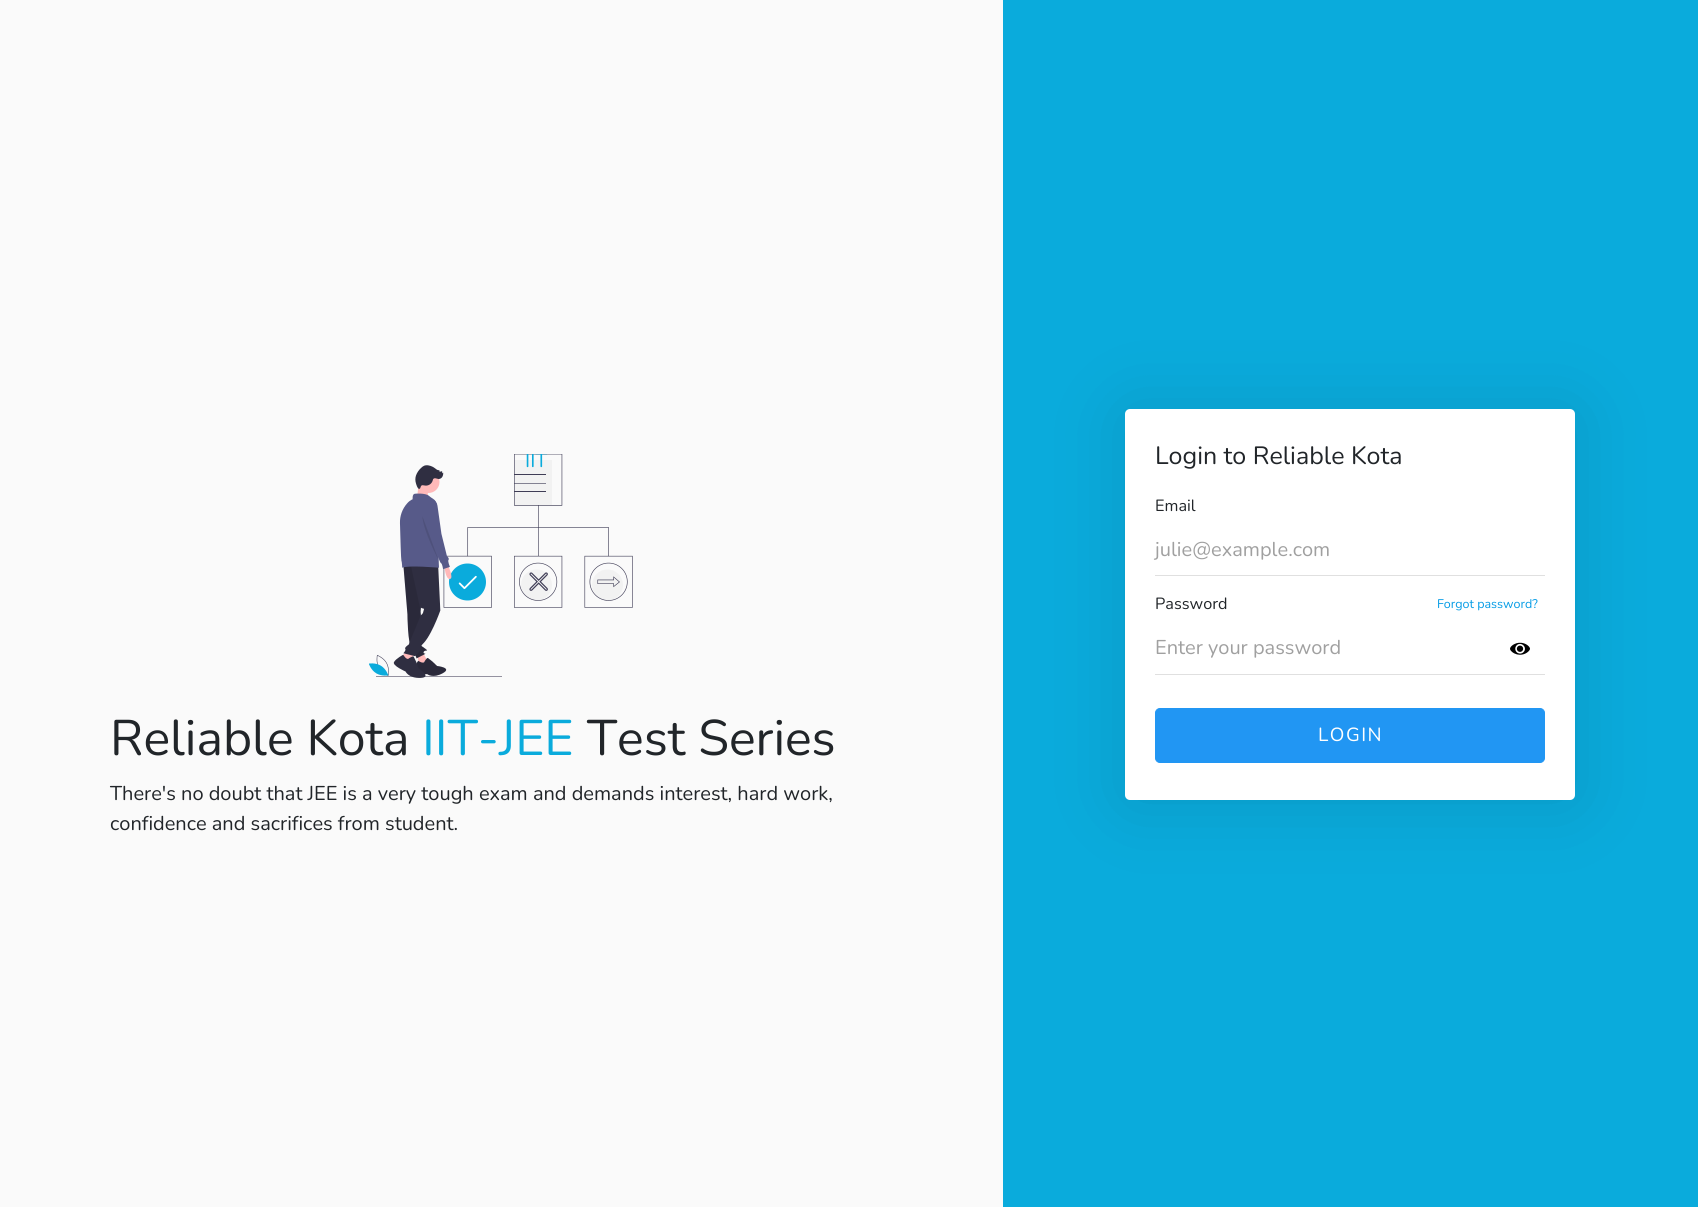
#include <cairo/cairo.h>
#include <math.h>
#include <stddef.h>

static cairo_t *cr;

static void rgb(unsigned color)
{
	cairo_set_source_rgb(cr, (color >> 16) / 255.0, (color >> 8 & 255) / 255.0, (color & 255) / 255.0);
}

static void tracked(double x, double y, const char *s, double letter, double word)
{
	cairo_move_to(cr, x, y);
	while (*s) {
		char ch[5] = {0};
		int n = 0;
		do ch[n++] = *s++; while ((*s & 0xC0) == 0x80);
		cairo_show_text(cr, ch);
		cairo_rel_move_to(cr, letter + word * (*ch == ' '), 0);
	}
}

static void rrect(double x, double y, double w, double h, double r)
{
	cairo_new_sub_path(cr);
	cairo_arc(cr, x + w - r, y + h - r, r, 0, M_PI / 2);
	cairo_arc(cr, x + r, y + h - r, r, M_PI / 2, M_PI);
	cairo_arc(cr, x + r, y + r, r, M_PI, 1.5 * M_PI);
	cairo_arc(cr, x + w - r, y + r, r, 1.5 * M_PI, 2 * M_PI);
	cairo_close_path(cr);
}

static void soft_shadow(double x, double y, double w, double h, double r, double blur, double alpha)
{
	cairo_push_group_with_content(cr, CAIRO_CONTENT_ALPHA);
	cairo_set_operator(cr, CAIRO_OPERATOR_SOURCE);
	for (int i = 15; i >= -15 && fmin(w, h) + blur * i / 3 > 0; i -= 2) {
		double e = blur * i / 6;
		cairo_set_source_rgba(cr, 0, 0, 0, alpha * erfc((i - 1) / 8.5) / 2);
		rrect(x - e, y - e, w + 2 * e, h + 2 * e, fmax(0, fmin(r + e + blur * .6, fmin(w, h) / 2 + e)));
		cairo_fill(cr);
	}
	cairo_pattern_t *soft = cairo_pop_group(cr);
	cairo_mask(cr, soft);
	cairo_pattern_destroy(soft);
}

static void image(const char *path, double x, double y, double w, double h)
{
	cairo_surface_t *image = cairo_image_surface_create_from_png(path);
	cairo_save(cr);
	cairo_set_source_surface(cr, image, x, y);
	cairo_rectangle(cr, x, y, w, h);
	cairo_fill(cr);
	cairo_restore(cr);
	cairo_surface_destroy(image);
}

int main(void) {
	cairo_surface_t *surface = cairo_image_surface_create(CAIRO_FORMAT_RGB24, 1698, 1207);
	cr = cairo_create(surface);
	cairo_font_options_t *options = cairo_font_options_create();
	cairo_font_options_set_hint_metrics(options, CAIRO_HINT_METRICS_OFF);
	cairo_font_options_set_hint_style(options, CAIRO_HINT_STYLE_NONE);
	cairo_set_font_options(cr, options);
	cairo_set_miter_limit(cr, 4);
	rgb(0xfafafa);
	cairo_paint(cr);
	image("img/1.png", 369, 454, 264, 224);
	rgb(0x0aabdc);
	cairo_rectangle(cr, 1003, 0, 695, 1207);
	cairo_fill(cr);
	rgb(0x000000);
	soft_shadow(1118, 404, 465, 406, 13, 35, 0.1);
	rgb(0xffffff);
	rrect(1125, 409, 450, 391, 5);
	cairo_fill(cr);
	rgb(0xe0e0e0);
	cairo_rectangle(cr, 1155, 575, 390, 1);
	cairo_fill(cr);
	cairo_rectangle(cr, 1155, 674, 390, 1);
	cairo_fill(cr);
	image("img/2.png", 1510, 642, 20, 13);
	rgb(0x2196f3);
	rrect(1155.5, 708.5, 389, 54, 4.5);
	cairo_fill_preserve(cr);
	cairo_set_line_width(cr, 1);
	cairo_stroke(cr);
	cairo_save(cr);
	cairo_rectangle(cr, 369, 454, 264, 225);
	cairo_clip(cr);
	cairo_select_font_face(cr, "Nunito", CAIRO_FONT_SLANT_NORMAL, CAIRO_FONT_WEIGHT_NORMAL);
	cairo_set_font_size(cr, 20);
	rgb(0x0aabdc);
	cairo_move_to(cr, 525, 467);
	cairo_show_text(cr, "IIT");
	cairo_restore(cr);
	cairo_select_font_face(cr, "Nunito", CAIRO_FONT_SLANT_NORMAL, CAIRO_FONT_WEIGHT_NORMAL);
	cairo_set_font_size(cr, 50);
	rgb(0x212529);
	cairo_move_to(cr, 110, 755);
	cairo_show_text(cr, "Reliable Kota");
	rgb(0x0aabdc);
	cairo_move_to(cr, 422, 755);
	cairo_show_text(cr, "IIT-JEE");
	rgb(0x212529);
	cairo_move_to(cr, 587, 755);
	cairo_show_text(cr, "Test Series");
	cairo_set_font_size(cr, 20);
	cairo_move_to(cr, 110, 800);
	cairo_show_text(cr, "There's no doubt that JEE is a very tough exam and demands interest, hard work,");
	cairo_move_to(cr, 110, 830);
	cairo_show_text(cr, "confidence and sacrifices from student.");
	cairo_set_font_size(cr, 25);
	cairo_move_to(cr, 1155, 464);
	cairo_show_text(cr, "Login to Reliable Kota");
	cairo_set_font_size(cr, 16.25);
	cairo_move_to(cr, 1155, 511);
	cairo_show_text(cr, "Email");
	cairo_set_font_size(cr, 20);
	rgb(0xa0a0a0);
	cairo_move_to(cr, 1155, 556);
	cairo_show_text(cr, "julie@example.com");
	cairo_set_font_size(cr, 16.25);
	rgb(0x212529);
	cairo_move_to(cr, 1155, 609);
	cairo_show_text(cr, "Password");
	cairo_set_font_size(cr, 12.5);
	rgb(0x039be5);
	cairo_move_to(cr, 1437, 608);
	cairo_show_text(cr, "Forgot password?");
	cairo_set_font_size(cr, 20);
	rgb(0xa0a0a0);
	cairo_move_to(cr, 1155, 654);
	cairo_show_text(cr, "Enter your password");
	cairo_set_font_size(cr, 19);
	rgb(0xffffff);
	tracked(1318, 741, "LOGIN", 1.5, 0);
	cairo_surface_write_to_png(surface, "page.png");
	cairo_font_options_destroy(options);
	cairo_destroy(cr);
	cairo_surface_destroy(surface);
	return 0;
}
